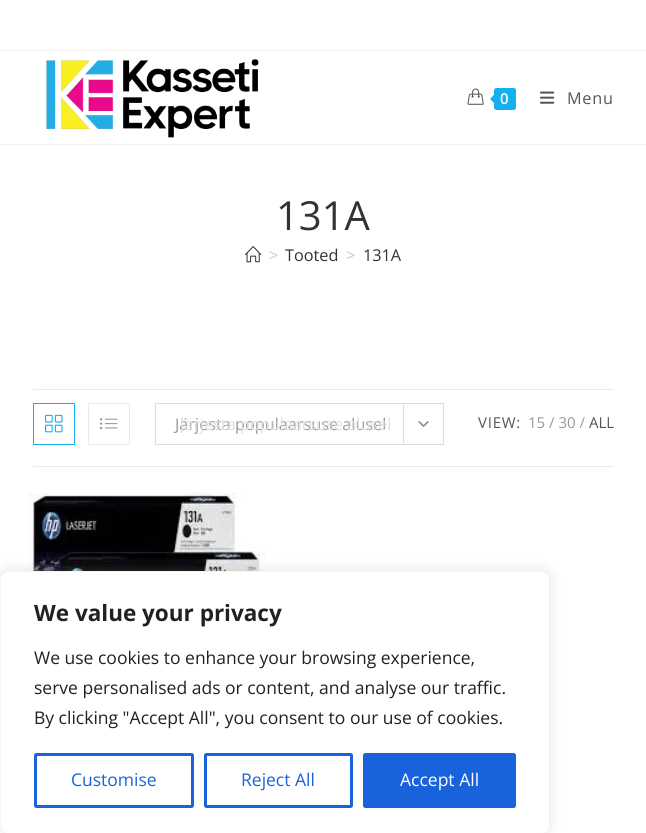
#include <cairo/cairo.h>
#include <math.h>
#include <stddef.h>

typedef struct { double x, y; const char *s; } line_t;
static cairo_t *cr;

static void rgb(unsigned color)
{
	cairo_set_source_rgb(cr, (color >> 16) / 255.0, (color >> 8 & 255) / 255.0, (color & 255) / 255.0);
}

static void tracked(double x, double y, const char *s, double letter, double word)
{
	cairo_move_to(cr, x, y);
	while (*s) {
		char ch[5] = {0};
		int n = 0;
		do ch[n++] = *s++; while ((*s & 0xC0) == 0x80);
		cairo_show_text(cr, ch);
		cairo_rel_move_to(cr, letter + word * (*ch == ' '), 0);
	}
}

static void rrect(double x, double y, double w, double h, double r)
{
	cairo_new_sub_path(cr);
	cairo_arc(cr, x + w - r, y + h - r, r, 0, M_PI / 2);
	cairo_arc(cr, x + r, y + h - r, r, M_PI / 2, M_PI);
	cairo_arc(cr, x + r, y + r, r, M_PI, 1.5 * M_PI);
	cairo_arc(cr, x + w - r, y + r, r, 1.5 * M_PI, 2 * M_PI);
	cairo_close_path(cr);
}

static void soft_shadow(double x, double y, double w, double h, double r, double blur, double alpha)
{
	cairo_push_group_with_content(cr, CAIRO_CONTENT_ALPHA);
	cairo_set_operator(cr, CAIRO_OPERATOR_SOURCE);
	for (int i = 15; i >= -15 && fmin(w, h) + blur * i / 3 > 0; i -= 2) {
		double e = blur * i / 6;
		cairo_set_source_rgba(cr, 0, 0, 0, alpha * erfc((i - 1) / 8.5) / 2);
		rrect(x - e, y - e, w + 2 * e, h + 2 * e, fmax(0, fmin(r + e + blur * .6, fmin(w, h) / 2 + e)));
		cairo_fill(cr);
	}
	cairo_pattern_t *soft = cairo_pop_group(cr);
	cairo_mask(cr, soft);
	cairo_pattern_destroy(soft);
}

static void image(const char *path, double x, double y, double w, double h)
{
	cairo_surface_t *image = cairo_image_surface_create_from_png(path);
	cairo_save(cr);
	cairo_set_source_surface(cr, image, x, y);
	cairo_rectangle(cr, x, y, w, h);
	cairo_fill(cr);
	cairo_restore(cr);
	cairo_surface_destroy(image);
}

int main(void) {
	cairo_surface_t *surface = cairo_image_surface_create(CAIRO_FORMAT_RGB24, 646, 833);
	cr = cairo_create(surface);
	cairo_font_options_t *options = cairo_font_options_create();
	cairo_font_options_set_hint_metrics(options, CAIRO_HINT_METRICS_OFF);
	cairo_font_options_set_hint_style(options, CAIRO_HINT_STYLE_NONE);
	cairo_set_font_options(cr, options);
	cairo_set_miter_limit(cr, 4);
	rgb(0xffffff);
	cairo_paint(cr);
	rgb(0xf1f1f1);
	cairo_rectangle(cr, 0, 50, 646, 1);
	cairo_fill(cr);
	cairo_rectangle(cr, 0, 144, 646, 1);
	cairo_fill(cr);
	image("img/1.png", 46, 59, 213, 79);
	image("img/2.png", 467, 88, 17, 17);
	rgb(0x13aff0);
	rrect(494, 88, 22, 22, 2.5);
	cairo_fill(cr);
	cairo_new_path(cr);
	cairo_move_to(cr, 496, 92.5);
	cairo_line_to(cr, 496, 105);
	cairo_line_to(cr, 490, 99);
	cairo_close_path(cr);
	cairo_fill(cr);
	image("img/3.png", 540, 91, 15, 13);
	image("img/4.png", 245, 246, 17, 17);
	rgb(0xeaeaea);
	cairo_rectangle(cr, 33, 389, 581, 1);
	cairo_fill(cr);
	cairo_rectangle(cr, 33, 466, 581, 1);
	cairo_fill(cr);
	cairo_rectangle(cr, 33.5, 403.5, 41, 41);
	rgb(0x13aff0);
	cairo_set_line_width(cr, 1);
	cairo_stroke(cr);
	image("img/5.png", 45, 414, 18, 19);
	cairo_rectangle(cr, 88.5, 403.5, 41, 41);
	rgb(0xeaeaea);
	cairo_stroke(cr);
	image("img/6.png", 100, 418, 18, 12);
	cairo_rectangle(cr, 155.5, 403.5, 288, 41);
	rgb(0xdddddd);
	cairo_stroke(cr);
	cairo_rectangle(cr, 403, 404, 1, 40);
	cairo_fill(cr);
	image("img/7.png", 418, 421, 11, 6);
	image("img/8.png", 27, 492, 288, 79);
	rgb(0xacabab);
	soft_shadow(0, 570, 550, 263, 8, 6, 0.3);
	rgb(0xffffff);
	rrect(0.5, 571.5, 549, 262, 7.5);
	cairo_fill_preserve(cr);
	rgb(0xf4f4f4);
	cairo_stroke(cr);
	rrect(35.5, 754.5, 157, 52, 1);
	rgb(0x1863dc);
	cairo_set_line_width(cr, 3);
	cairo_stroke(cr);
	rrect(205.5, 754.5, 146, 52, 1);
	cairo_stroke(cr);
	rrect(364.5, 754.5, 150, 52, 1);
	cairo_fill_preserve(cr);
	cairo_stroke(cr);
	cairo_select_font_face(cr, "Open Sans SemiBold", CAIRO_FONT_SLANT_NORMAL, CAIRO_FONT_WEIGHT_NORMAL);
	cairo_set_font_size(cr, 15);
	rgb(0xffffff);
	tracked(500, 104, "0", 0.75, 0);
	cairo_select_font_face(cr, "Open Sans", CAIRO_FONT_SLANT_NORMAL, CAIRO_FONT_WEIGHT_NORMAL);
	cairo_set_font_size(cr, 16.25);
	rgb(0x555555);
	tracked(567, 104, "Menu", 0.75, 0);
	cairo_set_font_size(cr, 40);
	rgb(0x333333);
	cairo_move_to(cr, 276, 230);
	cairo_show_text(cr, "131A");
	cairo_set_font_size(cr, 16.25);
	rgb(0xc6c6c6);
	cairo_move_to(cr, 269, 261);
	cairo_show_text(cr, ">");
	rgb(0x333333);
	cairo_move_to(cr, 285, 261);
	cairo_show_text(cr, "Tooted");
	rgb(0xc6c6c6);
	cairo_move_to(cr, 346, 261);
	cairo_show_text(cr, ">");
	rgb(0x333333);
	cairo_move_to(cr, 363, 261);
	cairo_show_text(cr, "131A");
	rgb(0x999999);
	cairo_move_to(cr, 175, 430);
	cairo_show_text(cr, "Järjesta populaarsuse alusel");
	cairo_save(cr);
	cairo_rectangle(cr, 180, 411, 224, 25);
	cairo_clip(cr);
	rgb(0xe1e1e1);
	cairo_move_to(cr, 180, 430);
	cairo_show_text(cr, "Järjesta populaarsuse alusel");
	cairo_restore(cr);
	cairo_set_font_size(cr, 15);
	rgb(0x555555);
	tracked(478, 428, "VIEW:", 0.75, 0);
	rgb(0x999999);
	cairo_move_to(cr, 528, 428);
	cairo_show_text(cr, "15 / 30 /");
	rgb(0x555555);
	cairo_move_to(cr, 589, 428);
	cairo_show_text(cr, "ALL");
	cairo_select_font_face(cr, "Open Sans", CAIRO_FONT_SLANT_NORMAL, CAIRO_FONT_WEIGHT_BOLD);
	cairo_set_font_size(cr, 22.5);
	rgb(0x212121);
	cairo_move_to(cr, 34, 621);
	cairo_show_text(cr, "We value your privacy");
	cairo_select_font_face(cr, "Open Sans", CAIRO_FONT_SLANT_NORMAL, CAIRO_FONT_WEIGHT_NORMAL);
	cairo_set_font_size(cr, 17.5);
	{
		static const line_t items[] = {
			{34, 664, "We use cookies to enhance your browsing experience,"},
			{34, 694, "serve personalised ads or content, and analyse our traffic."},
			{34, 724, "By clicking \"Accept All\", you consent to our use of cookies."},
		};
		for (size_t i = 0; i < sizeof items / sizeof *items; i++) {
			cairo_move_to(cr, items[i].x, items[i].y);
			cairo_show_text(cr, items[i].s);
		}
	}
	rgb(0x1863dc);
	cairo_move_to(cr, 71, 786);
	cairo_show_text(cr, "Customise");
	cairo_move_to(cr, 241, 786);
	cairo_show_text(cr, "Reject All");
	rgb(0xffffff);
	cairo_move_to(cr, 400, 786);
	cairo_show_text(cr, "Accept All");
	cairo_surface_write_to_png(surface, "page.png");
	cairo_font_options_destroy(options);
	cairo_destroy(cr);
	cairo_surface_destroy(surface);
	return 0;
}
